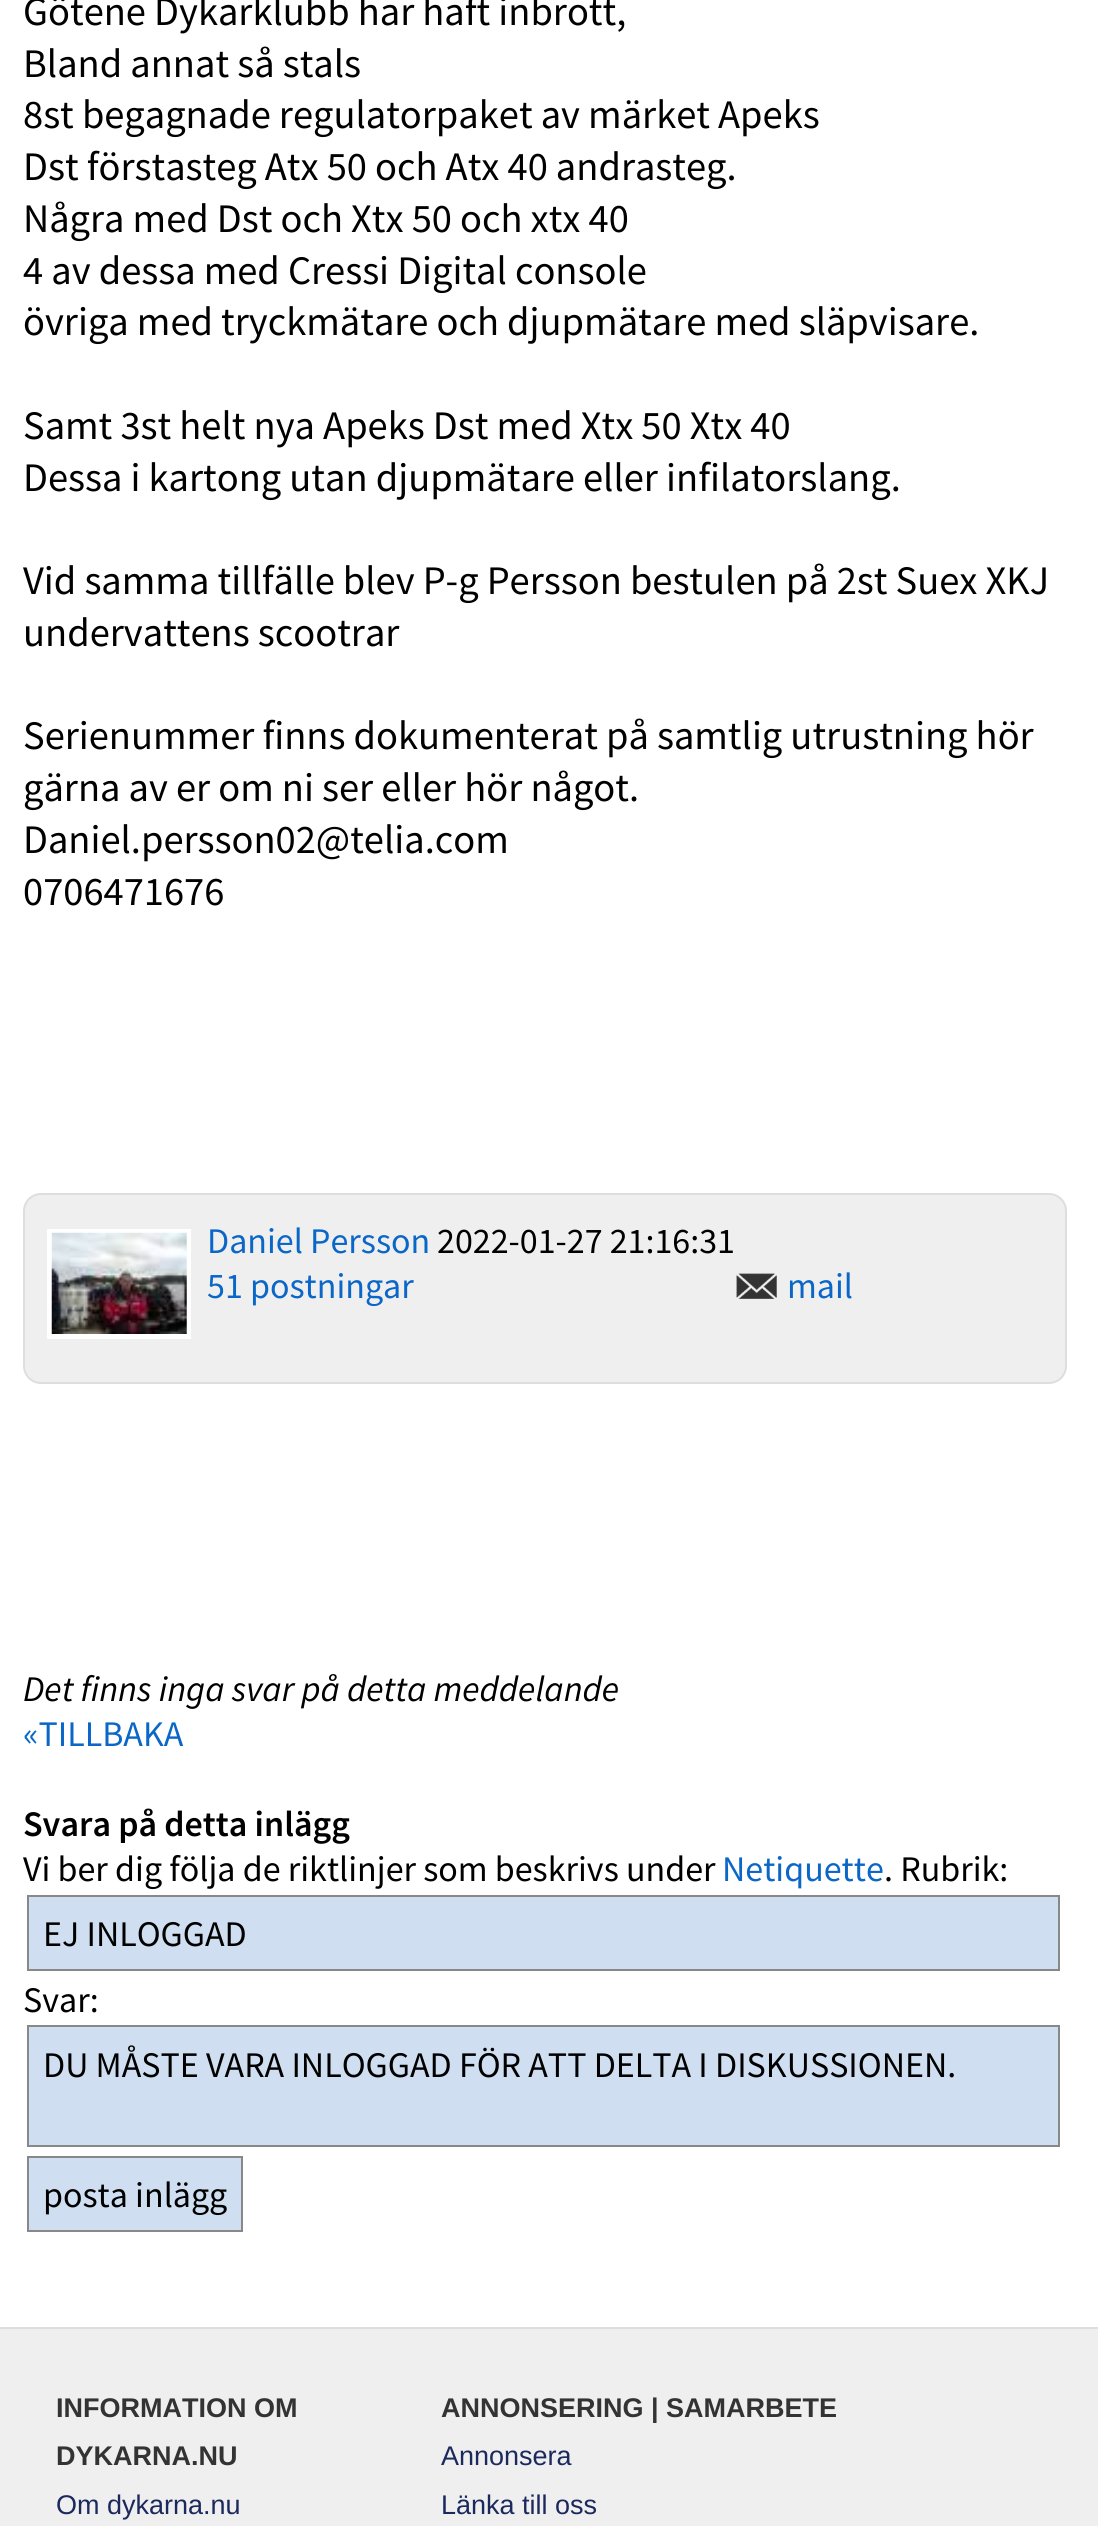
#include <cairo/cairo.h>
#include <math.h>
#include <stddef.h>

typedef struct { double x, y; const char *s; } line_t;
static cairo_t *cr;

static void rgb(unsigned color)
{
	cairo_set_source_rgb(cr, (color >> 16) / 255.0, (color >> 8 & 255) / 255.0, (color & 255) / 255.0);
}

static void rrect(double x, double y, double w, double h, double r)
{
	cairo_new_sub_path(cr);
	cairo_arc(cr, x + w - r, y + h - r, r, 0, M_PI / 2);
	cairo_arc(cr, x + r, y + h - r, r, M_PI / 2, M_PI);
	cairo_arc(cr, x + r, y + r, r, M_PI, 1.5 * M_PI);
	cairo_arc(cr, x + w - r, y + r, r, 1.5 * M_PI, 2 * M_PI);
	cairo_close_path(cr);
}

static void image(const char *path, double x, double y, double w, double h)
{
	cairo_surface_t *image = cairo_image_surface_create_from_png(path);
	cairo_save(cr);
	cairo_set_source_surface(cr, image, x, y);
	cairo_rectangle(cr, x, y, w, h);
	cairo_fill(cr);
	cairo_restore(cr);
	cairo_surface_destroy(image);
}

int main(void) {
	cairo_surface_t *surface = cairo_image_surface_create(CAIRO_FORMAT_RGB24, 1098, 2526);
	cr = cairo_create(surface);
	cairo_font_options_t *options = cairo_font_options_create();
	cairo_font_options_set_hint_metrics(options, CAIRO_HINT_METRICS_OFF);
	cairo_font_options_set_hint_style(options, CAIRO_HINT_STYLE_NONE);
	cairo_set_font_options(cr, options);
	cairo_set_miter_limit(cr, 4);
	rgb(0xefefef);
	cairo_paint(cr);
	rgb(0xffffff);
	cairo_rectangle(cr, 0, 0, 1098, 2327);
	cairo_fill(cr);
	rgb(0xefefef);
	rrect(24, 1194, 1042, 189, 17);
	cairo_fill_preserve(cr);
	rgb(0xdedede);
	cairo_stroke(cr);
	rgb(0xffffff);
	cairo_rectangle(cr, 47, 1229, 144, 110);
	cairo_fill(cr);
	image("img/1.png", 51, 1232, 136, 102);
	image("img/2.png", 736, 1273, 41, 26);
	rgb(0xcfdef0);
	cairo_rectangle(cr, 28, 1896, 1031, 74);
	cairo_fill_preserve(cr);
	rgb(0x888888);
	cairo_stroke(cr);
	rgb(0xcfdef0);
	cairo_rectangle(cr, 28, 2026, 1031, 120);
	cairo_fill_preserve(cr);
	rgb(0x888888);
	cairo_stroke(cr);
	rgb(0xcfdef0);
	cairo_rectangle(cr, 28, 2157, 214, 74);
	cairo_fill_preserve(cr);
	rgb(0x888888);
	cairo_stroke(cr);
	rgb(0xdedede);
	cairo_rectangle(cr, 0, 2327, 1098, 2);
	cairo_fill(cr);
	cairo_select_font_face(cr, "Source Sans Pro", CAIRO_FONT_SLANT_NORMAL, CAIRO_FONT_WEIGHT_NORMAL);
	cairo_set_font_size(cr, 40.5);
	rgb(0x000000);
	{
		static const line_t items[] = {
			{23, 25, "Götene Dykarklubb har haft inbrott,"},
			{23, 77, "Bland annat så stals"},
			{23, 128, "8st begagnade regulatorpaket av märket Apeks"},
			{23, 180, "Dst förstasteg Atx 50 och Atx 40 andrasteg."},
			{23, 232, "Några med Dst och Xtx 50 och xtx 40"},
			{23, 284, "4 av dessa med Cressi Digital console"},
			{23, 335, "övriga med tryckmätare och djupmätare med släpvisare."},
			{23, 439, "Samt 3st helt nya Apeks Dst med Xtx 50 Xtx 40"},
			{23, 491, "Dessa i kartong utan djupmätare eller infilatorslang."},
			{23, 594, "Vid samma tillfälle blev P-g Persson bestulen på 2st Suex XKJ"},
			{23, 646, "undervattens scootrar"},
			{23, 749, "Serienummer finns dokumenterat på samtlig utrustning hör"},
			{23, 801, "gärna av er om ni ser eller hör något."},
			{23, 853, "Daniel.persson02@telia.com"},
			{23, 905, "0706471676"},
		};
		for (size_t i = 0; i < sizeof items / sizeof *items; i++) {
			cairo_move_to(cr, items[i].x, items[i].y);
			cairo_show_text(cr, items[i].s);
		}
	}
	cairo_set_font_size(cr, 36);
	rgb(0x0a67c7);
	cairo_move_to(cr, 207, 1253);
	cairo_show_text(cr, "Daniel Persson");
	rgb(0x000000);
	cairo_move_to(cr, 437, 1253);
	cairo_show_text(cr, "2022-01-27 21:16:31");
	rgb(0x0a67c7);
	cairo_move_to(cr, 207, 1298);
	cairo_show_text(cr, "51 postningar");
	cairo_move_to(cr, 787, 1298);
	cairo_show_text(cr, "mail");
	cairo_select_font_face(cr, "Source Sans Pro", CAIRO_FONT_SLANT_ITALIC, CAIRO_FONT_WEIGHT_NORMAL);
	rgb(0x000000);
	cairo_move_to(cr, 23, 1701);
	cairo_show_text(cr, "Det finns inga svar på detta meddelande");
	cairo_select_font_face(cr, "Source Sans Pro", CAIRO_FONT_SLANT_NORMAL, CAIRO_FONT_WEIGHT_NORMAL);
	rgb(0x0a67c7);
	cairo_move_to(cr, 23, 1746);
	cairo_show_text(cr, "«TILLBAKA");
	cairo_select_font_face(cr, "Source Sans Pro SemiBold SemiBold", CAIRO_FONT_SLANT_NORMAL, CAIRO_FONT_WEIGHT_NORMAL);
	rgb(0x000000);
	cairo_move_to(cr, 23, 1836);
	cairo_show_text(cr, "Svara på detta inlägg");
	cairo_select_font_face(cr, "Source Sans Pro", CAIRO_FONT_SLANT_NORMAL, CAIRO_FONT_WEIGHT_NORMAL);
	cairo_move_to(cr, 23, 1881);
	cairo_show_text(cr, "Vi ber dig följa de riktlinjer som beskrivs under");
	rgb(0x0a67c7);
	cairo_move_to(cr, 722, 1881);
	cairo_show_text(cr, "Netiquette");
	rgb(0x000000);
	{
		static const line_t items[] = {
			{884, 1881, ". Rubrik:"},
			{43, 1946, "EJ INLOGGAD"},
			{23, 2012, "Svar:"},
			{43, 2077, "DU MÅSTE VARA INLOGGAD FÖR ATT DELTA I DISKUSSIONEN."},
			{43, 2207, "posta inlägg"},
		};
		for (size_t i = 0; i < sizeof items / sizeof *items; i++) {
			cairo_move_to(cr, items[i].x, items[i].y);
			cairo_show_text(cr, items[i].s);
		}
	}
	cairo_select_font_face(cr, "Liberation Sans", CAIRO_FONT_SLANT_NORMAL, CAIRO_FONT_WEIGHT_BOLD);
	cairo_set_font_size(cr, 27);
	rgb(0x333333);
	cairo_move_to(cr, 56, 2417);
	cairo_show_text(cr, "INFORMATION OM");
	cairo_move_to(cr, 56, 2465);
	cairo_show_text(cr, "DYKARNA.NU");
	cairo_select_font_face(cr, "Liberation Sans", CAIRO_FONT_SLANT_NORMAL, CAIRO_FONT_WEIGHT_NORMAL);
	rgb(0x1b295d);
	cairo_move_to(cr, 56, 2514);
	cairo_show_text(cr, "Om dykarna.nu");
	cairo_select_font_face(cr, "Liberation Sans", CAIRO_FONT_SLANT_NORMAL, CAIRO_FONT_WEIGHT_BOLD);
	rgb(0x333333);
	cairo_move_to(cr, 441, 2417);
	cairo_show_text(cr, "ANNONSERING | SAMARBETE");
	cairo_select_font_face(cr, "Liberation Sans", CAIRO_FONT_SLANT_NORMAL, CAIRO_FONT_WEIGHT_NORMAL);
	rgb(0x1b295d);
	cairo_move_to(cr, 441, 2465);
	cairo_show_text(cr, "Annonsera");
	cairo_move_to(cr, 441, 2514);
	cairo_show_text(cr, "Länka till oss");
	cairo_surface_write_to_png(surface, "page.png");
	cairo_font_options_destroy(options);
	cairo_destroy(cr);
	cairo_surface_destroy(surface);
	return 0;
}
